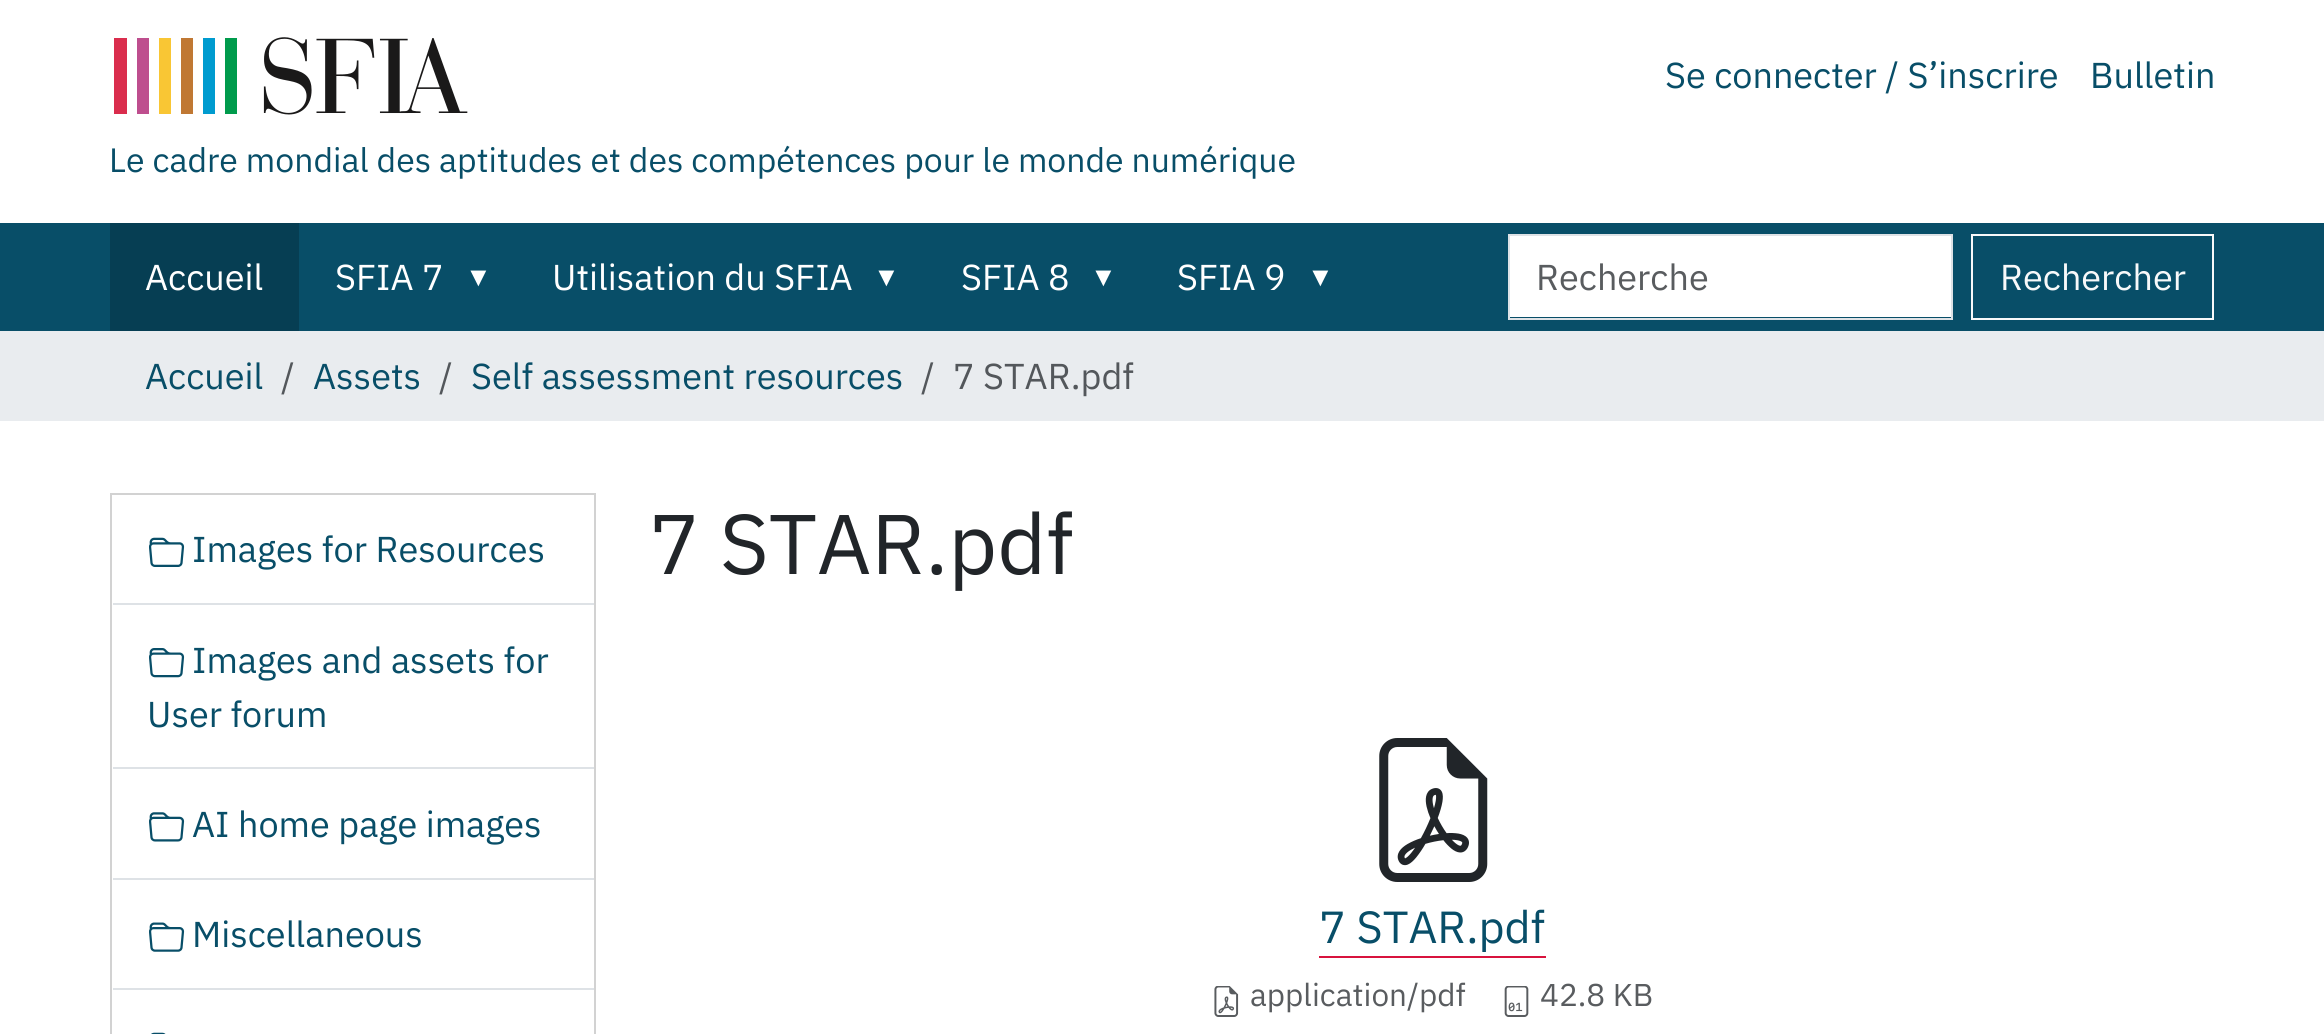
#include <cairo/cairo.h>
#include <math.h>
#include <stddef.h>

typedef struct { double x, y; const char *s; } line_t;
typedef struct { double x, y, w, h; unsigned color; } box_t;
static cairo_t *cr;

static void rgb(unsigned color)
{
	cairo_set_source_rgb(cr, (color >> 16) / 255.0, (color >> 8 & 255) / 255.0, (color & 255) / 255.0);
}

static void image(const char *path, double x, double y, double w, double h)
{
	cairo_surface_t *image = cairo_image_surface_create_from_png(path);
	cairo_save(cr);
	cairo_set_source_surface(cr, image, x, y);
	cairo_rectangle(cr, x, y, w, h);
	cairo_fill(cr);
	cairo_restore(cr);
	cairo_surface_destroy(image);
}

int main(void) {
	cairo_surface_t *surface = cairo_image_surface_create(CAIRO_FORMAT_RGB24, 2324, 1034);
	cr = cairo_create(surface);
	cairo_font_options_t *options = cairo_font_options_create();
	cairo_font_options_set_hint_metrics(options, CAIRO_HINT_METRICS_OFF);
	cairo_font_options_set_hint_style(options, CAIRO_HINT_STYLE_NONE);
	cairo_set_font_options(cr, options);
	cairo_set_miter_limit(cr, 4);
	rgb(0xffffff);
	cairo_paint(cr);
	image("img/1.png", 114, 37, 354, 78);
	{
		static const box_t items[] = {
			{0, 223, 2324, 108, 0x084e68},
			{110, 223, 189, 108, 0x063e53},
			{1510, 236, 441, 81, 0xffffff},
		};
		for (size_t i = 0; i < sizeof items / sizeof *items; i++) {
			rgb(items[i].color);
			cairo_rectangle(cr, items[i].x, items[i].y, items[i].w, items[i].h);
			cairo_fill(cr);
		}
	}
	cairo_rectangle(cr, 1509, 235, 443, 84);
	rgb(0xdee2e6);
	cairo_stroke(cr);
	cairo_rectangle(cr, 1972, 235, 241, 84);
	rgb(0xf8f9fa);
	cairo_stroke(cr);
	rgb(0xe9ecef);
	cairo_rectangle(cr, 0, 331, 2324, 90);
	cairo_fill(cr);
	cairo_rectangle(cr, 111, 494, 484, 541);
	rgb(0xd2d2d2);
	cairo_stroke(cr);
	image("img/2.png", 149, 537, 36, 30);
	rgb(0xdee2e6);
	cairo_rectangle(cr, 113, 603, 481, 2);
	cairo_fill(cr);
	image("img/3.png", 149, 648, 36, 30);
	cairo_rectangle(cr, 113, 767, 481, 2);
	cairo_fill(cr);
	image("img/4.png", 149, 812, 36, 30);
	cairo_rectangle(cr, 113, 878, 481, 2);
	cairo_fill(cr);
	image("img/5.png", 149, 922, 36, 30);
	cairo_rectangle(cr, 113, 988, 481, 2);
	cairo_fill(cr);
	image("img/6.png", 151, 1032, 15, 2);
	image("img/7.png", 1379, 738, 109, 144);
	rgb(0xd8133d);
	cairo_rectangle(cr, 1319, 956, 227, 2);
	cairo_fill(cr);
	image("img/8.png", 1214, 986, 25, 31);
	image("img/9.png", 1504, 986, 25, 31);
	cairo_select_font_face(cr, "IBM Plex Sans", CAIRO_FONT_SLANT_NORMAL, CAIRO_FONT_WEIGHT_NORMAL);
	cairo_set_font_size(cr, 36);
	rgb(0x084e68);
	cairo_move_to(cr, 1665, 88);
	cairo_show_text(cr, "Se connecter / S’inscrire");
	cairo_move_to(cr, 2090, 88);
	cairo_show_text(cr, "Bulletin");
	cairo_set_font_size(cr, 33.75);
	cairo_move_to(cr, 109, 172);
	cairo_show_text(cr, "Le cadre mondial des aptitudes et des compétences pour le monde numérique");
	cairo_set_font_size(cr, 36);
	rgb(0xffffff);
	cairo_move_to(cr, 145, 290);
	cairo_show_text(cr, "Accueil");
	cairo_move_to(cr, 335, 290);
	cairo_show_text(cr, "SFIA 7");
	cairo_select_font_face(cr, "Liberation Sans", CAIRO_FONT_SLANT_NORMAL, CAIRO_FONT_WEIGHT_NORMAL);
	cairo_set_font_size(cr, 27);
	cairo_move_to(cr, 465, 286);
	cairo_show_text(cr, "▼");
	cairo_select_font_face(cr, "IBM Plex Sans", CAIRO_FONT_SLANT_NORMAL, CAIRO_FONT_WEIGHT_NORMAL);
	cairo_set_font_size(cr, 36);
	cairo_move_to(cr, 552, 290);
	cairo_show_text(cr, "Utilisation du SFIA");
	cairo_select_font_face(cr, "Liberation Sans", CAIRO_FONT_SLANT_NORMAL, CAIRO_FONT_WEIGHT_NORMAL);
	cairo_set_font_size(cr, 27);
	cairo_move_to(cr, 873, 286);
	cairo_show_text(cr, "▼");
	cairo_select_font_face(cr, "IBM Plex Sans", CAIRO_FONT_SLANT_NORMAL, CAIRO_FONT_WEIGHT_NORMAL);
	cairo_set_font_size(cr, 36);
	cairo_move_to(cr, 961, 290);
	cairo_show_text(cr, "SFIA 8");
	cairo_select_font_face(cr, "Liberation Sans", CAIRO_FONT_SLANT_NORMAL, CAIRO_FONT_WEIGHT_NORMAL);
	cairo_set_font_size(cr, 27);
	cairo_move_to(cr, 1090, 286);
	cairo_show_text(cr, "▼");
	cairo_select_font_face(cr, "IBM Plex Sans", CAIRO_FONT_SLANT_NORMAL, CAIRO_FONT_WEIGHT_NORMAL);
	cairo_set_font_size(cr, 36);
	cairo_move_to(cr, 1177, 290);
	cairo_show_text(cr, "SFIA 9");
	cairo_select_font_face(cr, "Liberation Sans", CAIRO_FONT_SLANT_NORMAL, CAIRO_FONT_WEIGHT_NORMAL);
	cairo_set_font_size(cr, 27);
	cairo_move_to(cr, 1307, 286);
	cairo_show_text(cr, "▼");
	cairo_select_font_face(cr, "IBM Plex Sans", CAIRO_FONT_SLANT_NORMAL, CAIRO_FONT_WEIGHT_NORMAL);
	cairo_set_font_size(cr, 36);
	rgb(0x595c5f);
	cairo_move_to(cr, 1536, 290);
	cairo_show_text(cr, "Recherche");
	rgb(0xf8f9fa);
	cairo_move_to(cr, 2000, 290);
	cairo_show_text(cr, "Rechercher");
	rgb(0x084e68);
	cairo_move_to(cr, 145, 389);
	cairo_show_text(cr, "Accueil");
	rgb(0x53575b);
	cairo_move_to(cr, 281, 389);
	cairo_show_text(cr, "/");
	rgb(0x084e68);
	cairo_move_to(cr, 313, 389);
	cairo_show_text(cr, "Assets");
	rgb(0x53575b);
	cairo_move_to(cr, 439, 389);
	cairo_show_text(cr, "/");
	rgb(0x084e68);
	cairo_move_to(cr, 471, 389);
	cairo_show_text(cr, "Self assessment resources");
	rgb(0x53575b);
	cairo_move_to(cr, 921, 389);
	cairo_show_text(cr, "/");
	cairo_move_to(cr, 953, 389);
	cairo_show_text(cr, "7 STAR.pdf");
	rgb(0x084e68);
	{
		static const line_t items[] = {
			{192, 562, "Images for Resources"},
			{192, 673, "Images and assets for"},
			{147, 727, "User forum"},
			{192, 837, "AI home page images"},
			{192, 947, "Miscellaneous"},
		};
		for (size_t i = 0; i < sizeof items / sizeof *items; i++) {
			cairo_move_to(cr, items[i].x, items[i].y);
			cairo_show_text(cr, items[i].s);
		}
	}
	cairo_set_font_size(cr, 84.5);
	rgb(0x212529);
	cairo_move_to(cr, 649, 574);
	cairo_show_text(cr, "7 STAR.pdf");
	cairo_set_font_size(cr, 45);
	rgb(0x084e68);
	cairo_move_to(cr, 1319, 943);
	cairo_show_text(cr, "7 STAR.pdf");
	cairo_set_font_size(cr, 31.5);
	rgb(0x595c5f);
	cairo_move_to(cr, 1250, 1006);
	cairo_show_text(cr, "application/pdf");
	cairo_move_to(cr, 1540, 1006);
	cairo_show_text(cr, "42.8 KB");
	cairo_surface_write_to_png(surface, "page.png");
	cairo_font_options_destroy(options);
	cairo_destroy(cr);
	cairo_surface_destroy(surface);
	return 0;
}
